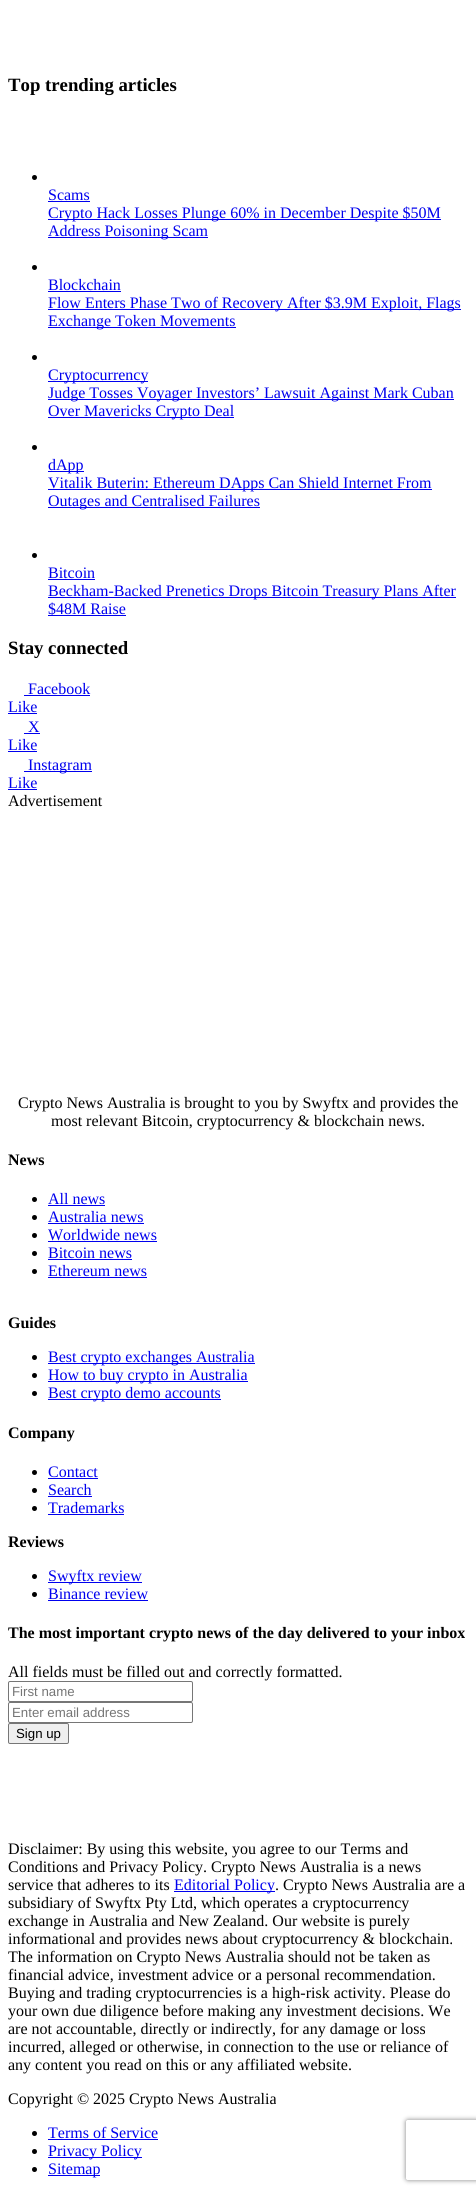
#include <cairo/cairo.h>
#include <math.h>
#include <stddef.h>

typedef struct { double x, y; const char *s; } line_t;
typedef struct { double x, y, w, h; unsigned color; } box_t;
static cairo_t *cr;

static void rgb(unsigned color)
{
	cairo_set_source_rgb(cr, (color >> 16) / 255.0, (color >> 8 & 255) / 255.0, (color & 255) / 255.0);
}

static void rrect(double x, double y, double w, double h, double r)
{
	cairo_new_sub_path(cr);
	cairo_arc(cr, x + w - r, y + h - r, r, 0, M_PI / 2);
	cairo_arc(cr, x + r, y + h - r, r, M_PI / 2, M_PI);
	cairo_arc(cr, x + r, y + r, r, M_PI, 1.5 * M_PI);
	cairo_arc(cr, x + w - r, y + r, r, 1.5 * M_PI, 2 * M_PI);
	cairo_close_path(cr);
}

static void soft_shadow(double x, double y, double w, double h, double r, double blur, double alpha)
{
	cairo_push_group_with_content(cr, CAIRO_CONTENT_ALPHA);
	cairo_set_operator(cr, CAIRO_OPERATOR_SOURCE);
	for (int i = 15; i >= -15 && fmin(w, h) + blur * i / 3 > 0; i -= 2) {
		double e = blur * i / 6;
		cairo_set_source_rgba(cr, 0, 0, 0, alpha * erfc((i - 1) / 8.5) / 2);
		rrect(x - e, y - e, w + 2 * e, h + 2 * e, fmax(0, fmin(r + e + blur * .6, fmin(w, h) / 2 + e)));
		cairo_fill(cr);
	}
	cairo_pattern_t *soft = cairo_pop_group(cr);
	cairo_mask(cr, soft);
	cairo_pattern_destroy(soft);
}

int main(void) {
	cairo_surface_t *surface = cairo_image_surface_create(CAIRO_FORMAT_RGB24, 476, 2194);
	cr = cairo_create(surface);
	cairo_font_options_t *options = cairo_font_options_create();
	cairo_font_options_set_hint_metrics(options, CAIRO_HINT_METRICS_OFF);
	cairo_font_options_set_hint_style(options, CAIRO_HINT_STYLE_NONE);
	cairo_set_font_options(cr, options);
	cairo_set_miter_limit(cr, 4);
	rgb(0xffffff);
	cairo_paint(cr);
	rgb(0x000000);
	cairo_arc(cr, 34.5, 177.5, 2.5, 0, 2 * M_PI);
	cairo_fill(cr);
	{
		static const box_t items[] = {
			{48, 201, 42, 1, 0x0000ee},
			{48, 219, 393, 1, 0x0000ee},
			{48, 237, 160, 1, 0x0000ee},
		};
		for (size_t i = 0; i < sizeof items / sizeof *items; i++) {
			rgb(items[i].color);
			cairo_rectangle(cr, items[i].x, items[i].y, items[i].w, items[i].h);
			cairo_fill(cr);
		}
	}
	rgb(0x000000);
	cairo_arc(cr, 34.5, 267.5, 2.5, 0, 2 * M_PI);
	cairo_fill(cr);
	{
		static const box_t items[] = {
			{48, 291, 73, 1, 0x0000ee},
			{48, 309, 413, 1, 0x0000ee},
			{48, 327, 188, 1, 0x0000ee},
		};
		for (size_t i = 0; i < sizeof items / sizeof *items; i++) {
			rgb(items[i].color);
			cairo_rectangle(cr, items[i].x, items[i].y, items[i].w, items[i].h);
			cairo_fill(cr);
		}
	}
	rgb(0x000000);
	cairo_arc(cr, 34.5, 357.5, 2.5, 0, 2 * M_PI);
	cairo_fill(cr);
	{
		static const box_t items[] = {
			{48, 381, 100, 1, 0x0000ee},
			{48, 399, 406, 1, 0x0000ee},
			{48, 417, 186, 1, 0x0000ee},
		};
		for (size_t i = 0; i < sizeof items / sizeof *items; i++) {
			rgb(items[i].color);
			cairo_rectangle(cr, items[i].x, items[i].y, items[i].w, items[i].h);
			cairo_fill(cr);
		}
	}
	rgb(0x000000);
	cairo_arc(cr, 34.5, 447.5, 2.5, 0, 2 * M_PI);
	cairo_fill(cr);
	{
		static const box_t items[] = {
			{48, 471, 36, 1, 0x0000ee},
			{48, 489, 384, 1, 0x0000ee},
			{48, 507, 212, 1, 0x0000ee},
		};
		for (size_t i = 0; i < sizeof items / sizeof *items; i++) {
			rgb(items[i].color);
			cairo_rectangle(cr, items[i].x, items[i].y, items[i].w, items[i].h);
			cairo_fill(cr);
		}
	}
	rgb(0x000000);
	cairo_arc(cr, 34.5, 555.5, 2.5, 0, 2 * M_PI);
	cairo_fill(cr);
	{
		static const box_t items[] = {
			{48, 579, 47, 1, 0x0000ee},
			{48, 597, 408, 1, 0x0000ee},
			{48, 615, 78, 1, 0x0000ee},
			{24, 695, 66, 1, 0x0000ee},
			{8, 713, 29, 1, 0x0000ee},
			{24, 733, 16, 1, 0x0000ee},
			{8, 751, 29, 1, 0x0000ee},
			{24, 771, 68, 1, 0x0000ee},
			{8, 789, 29, 1, 0x0000ee},
		};
		for (size_t i = 0; i < sizeof items / sizeof *items; i++) {
			rgb(items[i].color);
			cairo_rectangle(cr, items[i].x, items[i].y, items[i].w, items[i].h);
			cairo_fill(cr);
		}
	}
	rgb(0x000000);
	cairo_arc(cr, 34.5, 1199.5, 2.5, 0, 2 * M_PI);
	cairo_fill(cr);
	rgb(0x0000ee);
	cairo_rectangle(cr, 48, 1205, 57, 1);
	cairo_fill(cr);
	rgb(0x000000);
	cairo_arc(cr, 34.5, 1217.5, 2.5, 0, 2 * M_PI);
	cairo_fill(cr);
	rgb(0x0000ee);
	cairo_rectangle(cr, 48, 1223, 96, 1);
	cairo_fill(cr);
	rgb(0x000000);
	cairo_arc(cr, 34.5, 1235.5, 2.5, 0, 2 * M_PI);
	cairo_fill(cr);
	rgb(0x0000ee);
	cairo_rectangle(cr, 48, 1241, 109, 1);
	cairo_fill(cr);
	rgb(0x000000);
	cairo_arc(cr, 34.5, 1253.5, 2.5, 0, 2 * M_PI);
	cairo_fill(cr);
	rgb(0x0000ee);
	cairo_rectangle(cr, 48, 1259, 84, 1);
	cairo_fill(cr);
	rgb(0x000000);
	cairo_arc(cr, 34.5, 1271.5, 2.5, 0, 2 * M_PI);
	cairo_fill(cr);
	rgb(0x0000ee);
	cairo_rectangle(cr, 48, 1277, 99, 1);
	cairo_fill(cr);
	rgb(0x000000);
	cairo_arc(cr, 34.5, 1357.5, 2.5, 0, 2 * M_PI);
	cairo_fill(cr);
	rgb(0x0000ee);
	cairo_rectangle(cr, 48, 1363, 207, 1);
	cairo_fill(cr);
	rgb(0x000000);
	cairo_arc(cr, 34.5, 1375.5, 2.5, 0, 2 * M_PI);
	cairo_fill(cr);
	rgb(0x0000ee);
	cairo_rectangle(cr, 48, 1381, 200, 1);
	cairo_fill(cr);
	rgb(0x000000);
	cairo_arc(cr, 34.5, 1393.5, 2.5, 0, 2 * M_PI);
	cairo_fill(cr);
	rgb(0x0000ee);
	cairo_rectangle(cr, 48, 1399, 173, 1);
	cairo_fill(cr);
	rgb(0x000000);
	cairo_arc(cr, 34.5, 1472.5, 2.5, 0, 2 * M_PI);
	cairo_fill(cr);
	rgb(0x0000ee);
	cairo_rectangle(cr, 48, 1478, 50, 1);
	cairo_fill(cr);
	rgb(0x000000);
	cairo_arc(cr, 34.5, 1490.5, 2.5, 0, 2 * M_PI);
	cairo_fill(cr);
	rgb(0x0000ee);
	cairo_rectangle(cr, 48, 1496, 44, 1);
	cairo_fill(cr);
	rgb(0x000000);
	cairo_arc(cr, 34.5, 1508.5, 2.5, 0, 2 * M_PI);
	cairo_fill(cr);
	rgb(0x0000ee);
	cairo_rectangle(cr, 48, 1514, 76, 1);
	cairo_fill(cr);
	rgb(0x000000);
	cairo_arc(cr, 34.5, 1576.5, 2.5, 0, 2 * M_PI);
	cairo_fill(cr);
	rgb(0x0000ee);
	cairo_rectangle(cr, 48, 1582, 94, 1);
	cairo_fill(cr);
	rgb(0x000000);
	cairo_arc(cr, 34.5, 1594.5, 2.5, 0, 2 * M_PI);
	cairo_fill(cr);
	rgb(0x0000ee);
	cairo_rectangle(cr, 48, 1600, 100, 1);
	cairo_fill(cr);
	rrect(8.5, 1681.5, 184, 20, 1.5);
	rgb(0x767676);
	cairo_set_line_width(cr, 1);
	cairo_stroke(cr);
	rrect(8.5, 1702.5, 184, 20, 1.5);
	cairo_stroke(cr);
	rgb(0xefefef);
	rrect(8.5, 1723.5, 60, 20, 1.5);
	cairo_fill_preserve(cr);
	rgb(0x767676);
	cairo_stroke(cr);
	rgb(0x0000ee);
	cairo_rectangle(cr, 174, 1891, 101, 1);
	cairo_fill(cr);
	rgb(0x000000);
	cairo_arc(cr, 34.5, 2133.5, 2.5, 0, 2 * M_PI);
	cairo_fill(cr);
	rgb(0x0000ee);
	cairo_rectangle(cr, 48, 2139, 110, 1);
	cairo_fill(cr);
	rgb(0x000000);
	cairo_arc(cr, 34.5, 2151.5, 2.5, 0, 2 * M_PI);
	cairo_fill(cr);
	rgb(0x0000ee);
	cairo_rectangle(cr, 48, 2157, 94, 1);
	cairo_fill(cr);
	rgb(0x000000);
	cairo_arc(cr, 34.5, 2169.5, 2.5, 0, 2 * M_PI);
	cairo_fill(cr);
	rgb(0x0000ee);
	cairo_rectangle(cr, 48, 2175, 52, 1);
	cairo_fill(cr);
	cairo_save(cr);
	cairo_set_fill_rule(cr, CAIRO_FILL_RULE_EVEN_ODD);
	cairo_new_path(cr);
	cairo_move_to(cr, 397, 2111);
	cairo_line_to(cr, 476, 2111);
	cairo_line_to(cr, 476, 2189);
	cairo_line_to(cr, 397, 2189);
	cairo_close_path(cr);
	cairo_move_to(cr, 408, 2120);
	cairo_line_to(cr, 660, 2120);
	cairo_curve_to(cr, 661, 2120, 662, 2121, 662, 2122);
	cairo_line_to(cr, 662, 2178);
	cairo_curve_to(cr, 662, 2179, 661, 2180, 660, 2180);
	cairo_line_to(cr, 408, 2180);
	cairo_curve_to(cr, 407, 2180, 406, 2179, 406, 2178);
	cairo_line_to(cr, 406, 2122);
	cairo_curve_to(cr, 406, 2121, 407, 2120, 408, 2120);
	cairo_close_path(cr);
	cairo_clip(cr);
	rgb(0x808080);
	soft_shadow(406, 2120, 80, 60, 2, 2.5, 1);
	cairo_restore(cr);
	cairo_select_font_face(cr, "Liberation Serif", CAIRO_FONT_SLANT_NORMAL, CAIRO_FONT_WEIGHT_BOLD);
	cairo_set_font_size(cr, 18.75);
	rgb(0x000000);
	cairo_move_to(cr, 8, 91);
	cairo_show_text(cr, "Top trending articles");
	cairo_select_font_face(cr, "Liberation Serif", CAIRO_FONT_SLANT_NORMAL, CAIRO_FONT_WEIGHT_NORMAL);
	cairo_set_font_size(cr, 16);
	rgb(0x0000ee);
	{
		static const line_t items[] = {
			{48, 200, "Scams"},
			{48, 218, "Crypto Hack Losses Plunge 60% in December Despite $50M"},
			{48, 236, "Address Poisoning Scam"},
			{48, 290, "Blockchain"},
			{48, 308, "Flow Enters Phase Two of Recovery After $3.9M Exploit, Flags"},
			{48, 326, "Exchange Token Movements"},
			{48, 380, "Cryptocurrency"},
			{48, 398, "Judge Tosses Voyager Investors’ Lawsuit Against Mark Cuban"},
			{48, 416, "Over Mavericks Crypto Deal"},
			{48, 470, "dApp"},
			{48, 488, "Vitalik Buterin: Ethereum DApps Can Shield Internet From"},
			{48, 506, "Outages and Centralised Failures"},
			{48, 578, "Bitcoin"},
			{48, 596, "Beckham-Backed Prenetics Drops Bitcoin Treasury Plans After"},
			{48, 614, "$48M Raise"},
		};
		for (size_t i = 0; i < sizeof items / sizeof *items; i++) {
			cairo_move_to(cr, items[i].x, items[i].y);
			cairo_show_text(cr, items[i].s);
		}
	}
	cairo_select_font_face(cr, "Liberation Serif", CAIRO_FONT_SLANT_NORMAL, CAIRO_FONT_WEIGHT_BOLD);
	cairo_set_font_size(cr, 18.75);
	rgb(0x000000);
	cairo_move_to(cr, 8, 654);
	cairo_show_text(cr, "Stay connected");
	cairo_select_font_face(cr, "Liberation Serif", CAIRO_FONT_SLANT_NORMAL, CAIRO_FONT_WEIGHT_NORMAL);
	cairo_set_font_size(cr, 16);
	rgb(0x0000ee);
	{
		static const line_t items[] = {
			{28, 694, "Facebook"},
			{8, 712, "Like"},
			{28, 732, "X"},
			{8, 750, "Like"},
			{28, 770, "Instagram"},
			{8, 788, "Like"},
		};
		for (size_t i = 0; i < sizeof items / sizeof *items; i++) {
			cairo_move_to(cr, items[i].x, items[i].y);
			cairo_show_text(cr, items[i].s);
		}
	}
	rgb(0x000000);
	{
		static const line_t items[] = {
			{8, 806, "Advertisement"},
			{18, 1108, "Crypto News Australia is brought to you by Swyftx and provides the"},
			{51, 1126, "most relevant Bitcoin, cryptocurrency & blockchain news."},
		};
		for (size_t i = 0; i < sizeof items / sizeof *items; i++) {
			cairo_move_to(cr, items[i].x, items[i].y);
			cairo_show_text(cr, items[i].s);
		}
	}
	cairo_select_font_face(cr, "Liberation Serif", CAIRO_FONT_SLANT_NORMAL, CAIRO_FONT_WEIGHT_BOLD);
	cairo_move_to(cr, 8, 1165);
	cairo_show_text(cr, "News");
	cairo_select_font_face(cr, "Liberation Serif", CAIRO_FONT_SLANT_NORMAL, CAIRO_FONT_WEIGHT_NORMAL);
	rgb(0x0000ee);
	{
		static const line_t items[] = {
			{48, 1204, "All news"},
			{48, 1222, "Australia news"},
			{48, 1240, "Worldwide news"},
			{48, 1258, "Bitcoin news"},
			{48, 1276, "Ethereum news"},
		};
		for (size_t i = 0; i < sizeof items / sizeof *items; i++) {
			cairo_move_to(cr, items[i].x, items[i].y);
			cairo_show_text(cr, items[i].s);
		}
	}
	cairo_select_font_face(cr, "Liberation Serif", CAIRO_FONT_SLANT_NORMAL, CAIRO_FONT_WEIGHT_BOLD);
	rgb(0x000000);
	cairo_move_to(cr, 8, 1328);
	cairo_show_text(cr, "Guides");
	cairo_select_font_face(cr, "Liberation Serif", CAIRO_FONT_SLANT_NORMAL, CAIRO_FONT_WEIGHT_NORMAL);
	rgb(0x0000ee);
	{
		static const line_t items[] = {
			{48, 1362, "Best crypto exchanges Australia"},
			{48, 1380, "How to buy crypto in Australia"},
			{48, 1398, "Best crypto demo accounts"},
		};
		for (size_t i = 0; i < sizeof items / sizeof *items; i++) {
			cairo_move_to(cr, items[i].x, items[i].y);
			cairo_show_text(cr, items[i].s);
		}
	}
	cairo_select_font_face(cr, "Liberation Serif", CAIRO_FONT_SLANT_NORMAL, CAIRO_FONT_WEIGHT_BOLD);
	rgb(0x000000);
	cairo_move_to(cr, 8, 1438);
	cairo_show_text(cr, "Company");
	cairo_select_font_face(cr, "Liberation Serif", CAIRO_FONT_SLANT_NORMAL, CAIRO_FONT_WEIGHT_NORMAL);
	rgb(0x0000ee);
	{
		static const line_t items[] = {
			{48, 1477, "Contact"},
			{48, 1495, "Search"},
			{48, 1513, "Trademarks"},
		};
		for (size_t i = 0; i < sizeof items / sizeof *items; i++) {
			cairo_move_to(cr, items[i].x, items[i].y);
			cairo_show_text(cr, items[i].s);
		}
	}
	cairo_select_font_face(cr, "Liberation Serif", CAIRO_FONT_SLANT_NORMAL, CAIRO_FONT_WEIGHT_BOLD);
	rgb(0x000000);
	cairo_move_to(cr, 8, 1547);
	cairo_show_text(cr, "Reviews");
	cairo_select_font_face(cr, "Liberation Serif", CAIRO_FONT_SLANT_NORMAL, CAIRO_FONT_WEIGHT_NORMAL);
	rgb(0x0000ee);
	cairo_move_to(cr, 48, 1581);
	cairo_show_text(cr, "Swyftx review");
	cairo_move_to(cr, 48, 1599);
	cairo_show_text(cr, "Binance review");
	cairo_select_font_face(cr, "Liberation Serif", CAIRO_FONT_SLANT_NORMAL, CAIRO_FONT_WEIGHT_BOLD);
	rgb(0x000000);
	cairo_move_to(cr, 8, 1638);
	cairo_show_text(cr, "The most important crypto news of the day delivered to your inbox");
	cairo_select_font_face(cr, "Liberation Serif", CAIRO_FONT_SLANT_NORMAL, CAIRO_FONT_WEIGHT_NORMAL);
	cairo_move_to(cr, 8, 1677);
	cairo_show_text(cr, "All fields must be filled out and correctly formatted.");
	cairo_select_font_face(cr, "Liberation Sans", CAIRO_FONT_SLANT_NORMAL, CAIRO_FONT_WEIGHT_NORMAL);
	cairo_set_font_size(cr, 13.25);
	rgb(0x757575);
	cairo_move_to(cr, 12, 1696);
	cairo_show_text(cr, "First name");
	cairo_move_to(cr, 12, 1717);
	cairo_show_text(cr, "Enter email address");
	rgb(0x000000);
	cairo_move_to(cr, 16, 1738);
	cairo_show_text(cr, "Sign up");
	cairo_select_font_face(cr, "Liberation Serif", CAIRO_FONT_SLANT_NORMAL, CAIRO_FONT_WEIGHT_NORMAL);
	cairo_set_font_size(cr, 16);
	{
		static const line_t items[] = {
			{8, 1854, "Disclaimer: By using this website, you agree to our Terms and"},
			{8, 1872, "Conditions and Privacy Policy. Crypto News Australia is a news"},
			{8, 1890, "service that adheres to its"},
		};
		for (size_t i = 0; i < sizeof items / sizeof *items; i++) {
			cairo_move_to(cr, items[i].x, items[i].y);
			cairo_show_text(cr, items[i].s);
		}
	}
	rgb(0x0000ee);
	cairo_move_to(cr, 174, 1890);
	cairo_show_text(cr, "Editorial Policy");
	rgb(0x000000);
	{
		static const line_t items[] = {
			{275, 1890, ". Crypto News Australia are a"},
			{8, 1908, "subsidiary of Swyftx Pty Ltd, which operates a cryptocurrency"},
			{8, 1926, "exchange in Australia and New Zealand. Our website is purely"},
			{8, 1944, "informational and provides news about cryptocurrency & blockchain."},
			{8, 1962, "The information on Crypto News Australia should not be taken as"},
			{8, 1980, "financial advice, investment advice or a personal recommendation."},
			{8, 1998, "Buying and trading cryptocurrencies is a high-risk activity. Please do"},
			{8, 2016, "your own due diligence before making any investment decisions. We"},
			{8, 2034, "are not accountable, directly or indirectly, for any damage or loss"},
			{8, 2052, "incurred, alleged or otherwise, in connection to the use or reliance of"},
			{8, 2070, "any content you read on this or any affiliated website."},
			{8, 2104, "Copyright © 2025 Crypto News Australia"},
		};
		for (size_t i = 0; i < sizeof items / sizeof *items; i++) {
			cairo_move_to(cr, items[i].x, items[i].y);
			cairo_show_text(cr, items[i].s);
		}
	}
	rgb(0x0000ee);
	{
		static const line_t items[] = {
			{48, 2138, "Terms of Service"},
			{48, 2156, "Privacy Policy"},
			{48, 2174, "Sitemap"},
		};
		for (size_t i = 0; i < sizeof items / sizeof *items; i++) {
			cairo_move_to(cr, items[i].x, items[i].y);
			cairo_show_text(cr, items[i].s);
		}
	}
	cairo_surface_write_to_png(surface, "page.png");
	cairo_font_options_destroy(options);
	cairo_destroy(cr);
	cairo_surface_destroy(surface);
	return 0;
}
